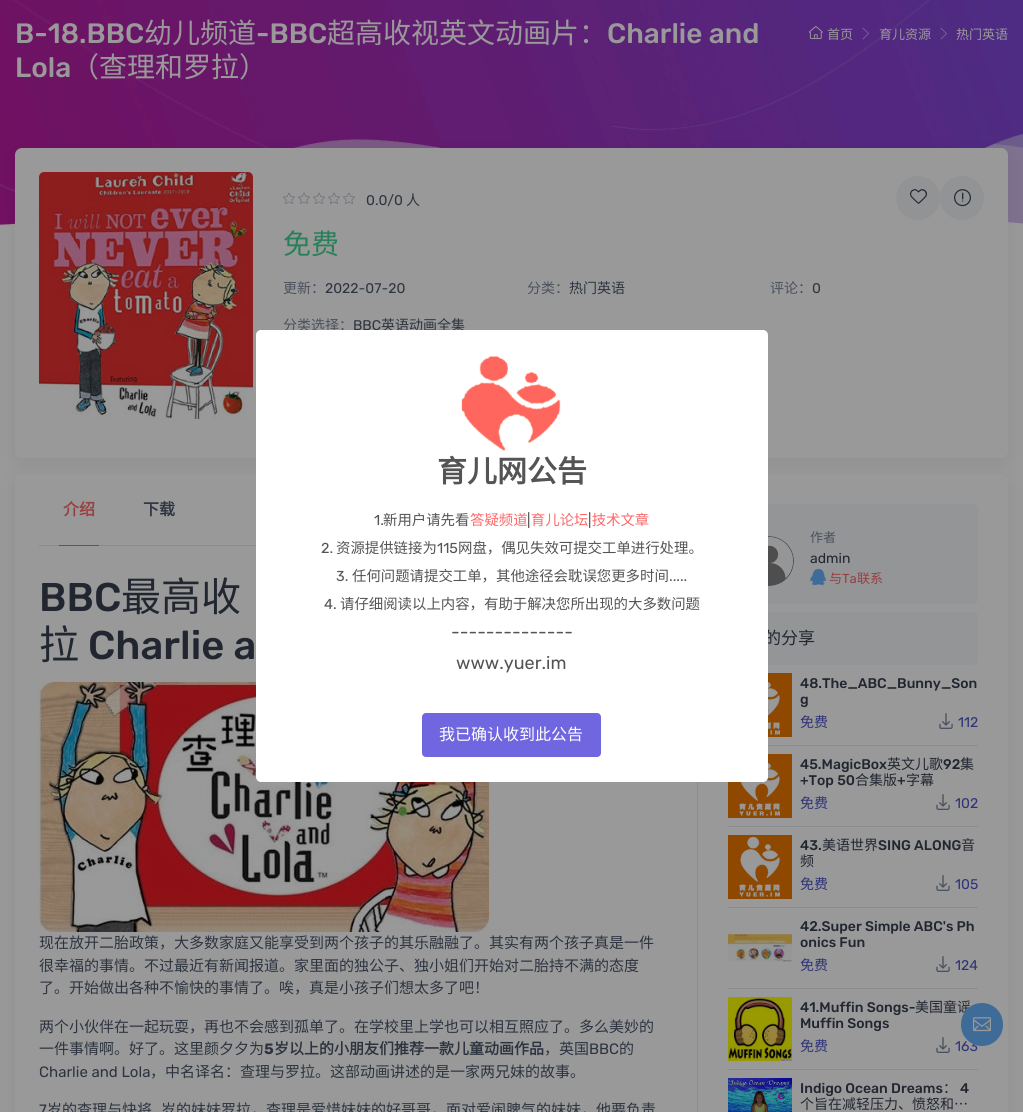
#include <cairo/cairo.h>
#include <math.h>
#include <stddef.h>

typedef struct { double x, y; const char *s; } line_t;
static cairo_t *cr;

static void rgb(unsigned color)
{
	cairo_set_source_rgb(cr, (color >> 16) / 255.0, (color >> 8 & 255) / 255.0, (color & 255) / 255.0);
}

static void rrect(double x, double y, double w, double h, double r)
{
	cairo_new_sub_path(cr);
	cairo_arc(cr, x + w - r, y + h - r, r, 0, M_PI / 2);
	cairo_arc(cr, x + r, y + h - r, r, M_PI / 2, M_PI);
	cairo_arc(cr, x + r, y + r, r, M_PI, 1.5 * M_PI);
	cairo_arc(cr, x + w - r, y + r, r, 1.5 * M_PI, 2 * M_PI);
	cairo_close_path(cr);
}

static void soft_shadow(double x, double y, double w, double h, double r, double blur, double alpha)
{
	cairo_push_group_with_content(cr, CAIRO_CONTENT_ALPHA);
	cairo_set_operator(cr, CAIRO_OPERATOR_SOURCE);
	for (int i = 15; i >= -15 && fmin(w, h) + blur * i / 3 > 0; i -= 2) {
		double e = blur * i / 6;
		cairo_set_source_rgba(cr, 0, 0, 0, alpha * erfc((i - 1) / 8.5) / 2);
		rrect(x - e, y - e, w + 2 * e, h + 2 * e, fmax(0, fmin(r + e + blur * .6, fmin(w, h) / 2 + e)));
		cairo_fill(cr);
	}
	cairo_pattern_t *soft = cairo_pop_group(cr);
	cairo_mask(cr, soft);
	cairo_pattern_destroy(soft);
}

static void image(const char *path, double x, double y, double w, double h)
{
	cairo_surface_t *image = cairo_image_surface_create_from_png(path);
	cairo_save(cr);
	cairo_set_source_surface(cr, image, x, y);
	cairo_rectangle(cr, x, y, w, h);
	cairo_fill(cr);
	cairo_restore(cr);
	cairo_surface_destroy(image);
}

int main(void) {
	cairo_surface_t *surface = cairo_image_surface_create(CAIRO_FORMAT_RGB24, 1023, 1112);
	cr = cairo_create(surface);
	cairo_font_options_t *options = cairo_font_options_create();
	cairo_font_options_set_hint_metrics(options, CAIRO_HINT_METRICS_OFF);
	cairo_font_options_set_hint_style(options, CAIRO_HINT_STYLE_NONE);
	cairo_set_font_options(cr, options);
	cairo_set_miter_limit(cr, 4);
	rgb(0x999999);
	cairo_paint(cr);
	image("img/1.png", 0, 0, 1023, 226);
	image("img/2.png", 809, 26, 14, 13);
	image("img/3.png", 862, 27, 7, 13);
	image("img/4.png", 940, 27, 7, 13);
	rgb(0x000000);
	soft_shadow(21, 159, 981, 298, 1, 12, 0.1);
	rgb(0x999999);
	rrect(15, 148, 993, 310, 7);
	cairo_fill(cr);
	image("img/5.png", 39, 172, 214, 247);
	image("img/6.png", 283, 192, 12, 12);
	image("img/6.png", 298, 192, 12, 12);
	image("img/6.png", 313, 192, 12, 12);
	image("img/6.png", 328, 192, 12, 12);
	image("img/6.png", 343, 192, 12, 12);
	rgb(0x929395);
	cairo_arc(cr, 918, 198, 22, 0, 2 * M_PI);
	cairo_fill(cr);
	image("img/7.png", 910, 189, 17, 15);
	cairo_arc(cr, 962, 198, 22, 0, 2 * M_PI);
	cairo_fill(cr);
	image("img/8.png", 954, 189, 17, 18);
	rgb(0x000000);
	soft_shadow(21, 485, 981, 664, 1, 12, 0.1);
	rgb(0x999999);
	rrect(15, 474, 993, 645, 7);
	cairo_fill(cr);
	rgb(0x888c8f);
	cairo_rectangle(cr, 39, 545, 217, 1);
	cairo_fill(cr);
	rgb(0x983f40);
	cairo_rectangle(cr, 59, 545, 40, 1);
	cairo_fill(cr);
	image("img/9.png", 39, 682, 450, 250);
	rgb(0x888c8f);
	cairo_rectangle(cr, 697, 782, 1, 330);
	cairo_fill(cr);
	rgb(0x949597);
	rrect(728, 504, 250, 100, 5);
	cairo_fill(cr);
	image("img/10.png", 768, 536, 26, 50);
	image("img/11.png", 810, 569, 16, 16);
	rrect(728, 612, 250, 53, 5);
	cairo_fill(cr);
	rgb(0x888c8f);
	cairo_rectangle(cr, 768, 745, 210, 1);
	cairo_fill(cr);
	image("img/12.png", 768, 673, 24, 64);
	image("img/13.png", 939, 713, 14, 16);
	cairo_rectangle(cr, 728, 826, 250, 1);
	cairo_fill(cr);
	image("img/14.png", 728, 754, 64, 64);
	image("img/13.png", 936, 794, 14, 16);
	cairo_rectangle(cr, 728, 907, 250, 1);
	cairo_fill(cr);
	image("img/14.png", 728, 835, 64, 64);
	image("img/13.png", 936, 875, 14, 16);
	cairo_rectangle(cr, 728, 988, 250, 1);
	cairo_fill(cr);
	image("img/15.png", 728, 934, 64, 28);
	image("img/13.png", 936, 956, 14, 16);
	cairo_rectangle(cr, 728, 1069, 250, 1);
	cairo_fill(cr);
	image("img/16.png", 728, 997, 64, 64);
	image("img/13.png", 936, 1037, 14, 16);
	image("img/17.png", 728, 1078, 64, 34);
	cairo_select_font_face(cr, "Rubik Light", CAIRO_FONT_SLANT_NORMAL, CAIRO_FONT_WEIGHT_NORMAL);
	cairo_set_font_size(cr, 28);
	rgb(0x999999);
	cairo_move_to(cr, 15, 43);
	cairo_show_text(cr, "B-18.BBC");
	cairo_select_font_face(cr, "Noto Sans CJK SC", CAIRO_FONT_SLANT_NORMAL, CAIRO_FONT_WEIGHT_NORMAL);
	cairo_move_to(cr, 144, 43);
	cairo_show_text(cr, "幼儿频道");
	cairo_select_font_face(cr, "Rubik Light", CAIRO_FONT_SLANT_NORMAL, CAIRO_FONT_WEIGHT_NORMAL);
	cairo_move_to(cr, 256, 43);
	cairo_show_text(cr, "-BBC");
	cairo_select_font_face(cr, "Noto Sans CJK SC", CAIRO_FONT_SLANT_NORMAL, CAIRO_FONT_WEIGHT_NORMAL);
	cairo_move_to(cr, 327, 43);
	cairo_show_text(cr, "超高收视英文动画片：");
	cairo_select_font_face(cr, "Rubik Light", CAIRO_FONT_SLANT_NORMAL, CAIRO_FONT_WEIGHT_NORMAL);
	cairo_move_to(cr, 607, 43);
	cairo_show_text(cr, "Charlie and");
	cairo_move_to(cr, 15, 77);
	cairo_show_text(cr, "Lola");
	cairo_select_font_face(cr, "Noto Sans CJK SC", CAIRO_FONT_SLANT_NORMAL, CAIRO_FONT_WEIGHT_NORMAL);
	cairo_move_to(cr, 71, 77);
	cairo_show_text(cr, "（查理和罗拉）");
	cairo_set_font_size(cr, 13);
	{
		static const line_t items[] = {
			{827, 39, "首页"},
			{879, 39, "育儿资源"},
			{956, 39, "热门英语"},
		};
		for (size_t i = 0; i < sizeof items / sizeof *items; i++) {
			cairo_move_to(cr, items[i].x, items[i].y);
			cairo_show_text(cr, items[i].s);
		}
	}
	cairo_select_font_face(cr, "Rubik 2 Light", CAIRO_FONT_SLANT_NORMAL, CAIRO_FONT_WEIGHT_NORMAL);
	cairo_set_font_size(cr, 14);
	rgb(0x2d3440);
	cairo_move_to(cr, 366, 205);
	cairo_show_text(cr, "0.0/0");
	cairo_select_font_face(cr, "Noto Sans CJK SC", CAIRO_FONT_SLANT_NORMAL, CAIRO_FONT_WEIGHT_NORMAL);
	cairo_move_to(cr, 406, 205);
	cairo_show_text(cr, "人");
	cairo_set_font_size(cr, 28);
	rgb(0x28805b);
	cairo_move_to(cr, 283, 254);
	cairo_show_text(cr, "免费");
	cairo_set_font_size(cr, 14);
	rgb(0x4b515e);
	cairo_move_to(cr, 283, 293);
	cairo_show_text(cr, "更新：");
	cairo_select_font_face(cr, "Rubik 2 Light", CAIRO_FONT_SLANT_NORMAL, CAIRO_FONT_WEIGHT_NORMAL);
	rgb(0x2d3440);
	cairo_move_to(cr, 325, 293);
	cairo_show_text(cr, "2022-07-20");
	cairo_select_font_face(cr, "Noto Sans CJK SC", CAIRO_FONT_SLANT_NORMAL, CAIRO_FONT_WEIGHT_NORMAL);
	rgb(0x4b515e);
	cairo_move_to(cr, 527, 293);
	cairo_show_text(cr, "分类：");
	rgb(0x2d3440);
	cairo_move_to(cr, 569, 293);
	cairo_show_text(cr, "热门英语");
	rgb(0x4b515e);
	cairo_move_to(cr, 770, 293);
	cairo_show_text(cr, "评论：");
	cairo_select_font_face(cr, "Rubik 2 Light", CAIRO_FONT_SLANT_NORMAL, CAIRO_FONT_WEIGHT_NORMAL);
	rgb(0x2d3440);
	cairo_move_to(cr, 812, 293);
	cairo_show_text(cr, "0");
	cairo_select_font_face(cr, "Noto Sans CJK SC", CAIRO_FONT_SLANT_NORMAL, CAIRO_FONT_WEIGHT_NORMAL);
	rgb(0x4b515e);
	cairo_move_to(cr, 283, 330);
	cairo_show_text(cr, "分类选择：");
	cairo_select_font_face(cr, "Rubik 2 Light", CAIRO_FONT_SLANT_NORMAL, CAIRO_FONT_WEIGHT_NORMAL);
	rgb(0x2d3440);
	cairo_move_to(cr, 353, 330);
	cairo_show_text(cr, "BBC");
	cairo_select_font_face(cr, "Noto Sans CJK SC", CAIRO_FONT_SLANT_NORMAL, CAIRO_FONT_WEIGHT_NORMAL);
	cairo_move_to(cr, 381, 330);
	cairo_show_text(cr, "英语动画全集");
	cairo_select_font_face(cr, "Noto Sans CJK SC", CAIRO_FONT_SLANT_NORMAL, CAIRO_FONT_WEIGHT_BOLD);
	cairo_set_font_size(cr, 16);
	rgb(0x983f40);
	cairo_move_to(cr, 63, 515);
	cairo_show_text(cr, "介绍");
	rgb(0x2d3440);
	cairo_move_to(cr, 143, 515);
	cairo_show_text(cr, "下载");
	cairo_select_font_face(cr, "Rubik Light", CAIRO_FONT_SLANT_NORMAL, CAIRO_FONT_WEIGHT_NORMAL);
	cairo_set_font_size(cr, 40);
	rgb(0x212630);
	cairo_move_to(cr, 39, 611);
	cairo_show_text(cr, "BBC");
	cairo_select_font_face(cr, "Noto Sans CJK SC", CAIRO_FONT_SLANT_NORMAL, CAIRO_FONT_WEIGHT_NORMAL);
	cairo_move_to(cr, 121, 611);
	cairo_show_text(cr, "最高收");
	cairo_move_to(cr, 39, 659);
	cairo_show_text(cr, "拉");
	cairo_select_font_face(cr, "Rubik Light", CAIRO_FONT_SLANT_NORMAL, CAIRO_FONT_WEIGHT_NORMAL);
	cairo_move_to(cr, 88, 659);
	cairo_show_text(cr, "Charlie a");
	cairo_select_font_face(cr, "Noto Sans CJK SC", CAIRO_FONT_SLANT_NORMAL, CAIRO_FONT_WEIGHT_NORMAL);
	cairo_set_font_size(cr, 15);
	rgb(0x2d3440);
	{
		static const line_t items[] = {
			{39, 948, "现在放开二胎政策，大多数家庭又能享受到两个孩子的其乐融融了。其实有两个孩子真是一件"},
			{39, 971, "很幸福的事情。不过最近有新闻报道。家里面的独公子、独小姐们开始对二胎持不满的态度"},
			{39, 993, "了。开始做出各种不愉快的事情了。唉，真是小孩子们想太多了吧！"},
			{39, 1032, "两个小伙伴在一起玩耍，再也不会感到孤单了。在学校里上学也可以相互照应了。多么美妙的"},
			{39, 1054, "一件事情啊。好了。这里颜夕夕为"},
		};
		for (size_t i = 0; i < sizeof items / sizeof *items; i++) {
			cairo_move_to(cr, items[i].x, items[i].y);
			cairo_show_text(cr, items[i].s);
		}
	}
	cairo_select_font_face(cr, "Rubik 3 Light", CAIRO_FONT_SLANT_NORMAL, CAIRO_FONT_WEIGHT_NORMAL);
	cairo_move_to(cr, 264, 1054);
	cairo_show_text(cr, "5");
	cairo_select_font_face(cr, "Noto Sans CJK SC", CAIRO_FONT_SLANT_NORMAL, CAIRO_FONT_WEIGHT_BOLD);
	cairo_move_to(cr, 274, 1054);
	cairo_show_text(cr, "岁以上的小朋友们推荐一款儿童动画作品");
	cairo_select_font_face(cr, "Noto Sans CJK SC", CAIRO_FONT_SLANT_NORMAL, CAIRO_FONT_WEIGHT_NORMAL);
	cairo_move_to(cr, 544, 1054);
	cairo_show_text(cr, "，英国");
	cairo_select_font_face(cr, "Rubik 2 Light", CAIRO_FONT_SLANT_NORMAL, CAIRO_FONT_WEIGHT_NORMAL);
	cairo_move_to(cr, 589, 1054);
	cairo_show_text(cr, "BBC");
	cairo_select_font_face(cr, "Noto Sans CJK SC", CAIRO_FONT_SLANT_NORMAL, CAIRO_FONT_WEIGHT_NORMAL);
	cairo_move_to(cr, 619, 1054);
	cairo_show_text(cr, "的");
	cairo_select_font_face(cr, "Rubik 2 Light", CAIRO_FONT_SLANT_NORMAL, CAIRO_FONT_WEIGHT_NORMAL);
	cairo_move_to(cr, 39, 1077);
	cairo_show_text(cr, "Charlie and Lola");
	cairo_select_font_face(cr, "Noto Sans CJK SC", CAIRO_FONT_SLANT_NORMAL, CAIRO_FONT_WEIGHT_NORMAL);
	cairo_move_to(cr, 150, 1077);
	cairo_show_text(cr, "，中名译名：查理与罗拉。这部动画讲述的是一家两兄妹的故事。");
	cairo_select_font_face(cr, "Rubik 2 Light", CAIRO_FONT_SLANT_NORMAL, CAIRO_FONT_WEIGHT_NORMAL);
	cairo_move_to(cr, 39, 1115);
	cairo_show_text(cr, "7");
	cairo_select_font_face(cr, "Noto Sans CJK SC", CAIRO_FONT_SLANT_NORMAL, CAIRO_FONT_WEIGHT_NORMAL);
	cairo_move_to(cr, 47, 1115);
	cairo_show_text(cr, "岁的查理与快将");
	cairo_move_to(cr, 161, 1115);
	cairo_show_text(cr, "岁的妹妹罗拉，查理是爱惜妹妹的好哥哥，面对爱闹脾气的妹妹，他要负责");
	cairo_set_font_size(cr, 13);
	rgb(0x4b515e);
	cairo_move_to(cr, 810, 542);
	cairo_show_text(cr, "作者");
	cairo_select_font_face(cr, "Rubik 2 Light", CAIRO_FONT_SLANT_NORMAL, CAIRO_FONT_WEIGHT_NORMAL);
	cairo_set_font_size(cr, 14);
	rgb(0x212630);
	cairo_move_to(cr, 810, 563);
	cairo_show_text(cr, "admin");
	cairo_select_font_face(cr, "Noto Sans CJK SC", CAIRO_FONT_SLANT_NORMAL, CAIRO_FONT_WEIGHT_NORMAL);
	cairo_set_font_size(cr, 13);
	rgb(0x983f40);
	cairo_move_to(cr, 829, 583);
	cairo_show_text(cr, "与");
	cairo_select_font_face(cr, "Rubik 2 Light", CAIRO_FONT_SLANT_NORMAL, CAIRO_FONT_WEIGHT_NORMAL);
	cairo_move_to(cr, 842, 583);
	cairo_show_text(cr, "Ta");
	cairo_select_font_face(cr, "Noto Sans CJK SC", CAIRO_FONT_SLANT_NORMAL, CAIRO_FONT_WEIGHT_NORMAL);
	cairo_move_to(cr, 857, 583);
	cairo_show_text(cr, "联系");
	cairo_set_font_size(cr, 17);
	rgb(0x212630);
	cairo_move_to(cr, 764, 644);
	cairo_show_text(cr, "的分享");
	cairo_select_font_face(cr, "Rubik Light", CAIRO_FONT_SLANT_NORMAL, CAIRO_FONT_WEIGHT_NORMAL);
	cairo_set_font_size(cr, 14);
	cairo_move_to(cr, 800, 688);
	cairo_show_text(cr, "48.The_ABC_Bunny_Son");
	cairo_move_to(cr, 800, 704);
	cairo_show_text(cr, "g");
	cairo_select_font_face(cr, "Noto Sans CJK SC", CAIRO_FONT_SLANT_NORMAL, CAIRO_FONT_WEIGHT_NORMAL);
	rgb(0x2f3278);
	cairo_move_to(cr, 800, 727);
	cairo_show_text(cr, "免费");
	cairo_select_font_face(cr, "Rubik 2 Light", CAIRO_FONT_SLANT_NORMAL, CAIRO_FONT_WEIGHT_NORMAL);
	cairo_move_to(cr, 958, 727);
	cairo_show_text(cr, "112");
	cairo_select_font_face(cr, "Rubik Light", CAIRO_FONT_SLANT_NORMAL, CAIRO_FONT_WEIGHT_NORMAL);
	rgb(0x212630);
	cairo_move_to(cr, 800, 769);
	cairo_show_text(cr, "45.MagicBox");
	cairo_select_font_face(cr, "Noto Sans CJK SC", CAIRO_FONT_SLANT_NORMAL, CAIRO_FONT_WEIGHT_NORMAL);
	cairo_move_to(cr, 887, 769);
	cairo_show_text(cr, "英文儿歌");
	cairo_select_font_face(cr, "Rubik Light", CAIRO_FONT_SLANT_NORMAL, CAIRO_FONT_WEIGHT_NORMAL);
	cairo_move_to(cr, 943, 769);
	cairo_show_text(cr, "92");
	cairo_select_font_face(cr, "Noto Sans CJK SC", CAIRO_FONT_SLANT_NORMAL, CAIRO_FONT_WEIGHT_NORMAL);
	cairo_move_to(cr, 960, 769);
	cairo_show_text(cr, "集");
	cairo_select_font_face(cr, "Rubik Light", CAIRO_FONT_SLANT_NORMAL, CAIRO_FONT_WEIGHT_NORMAL);
	cairo_move_to(cr, 800, 785);
	cairo_show_text(cr, "+Top 50");
	cairo_select_font_face(cr, "Noto Sans CJK SC", CAIRO_FONT_SLANT_NORMAL, CAIRO_FONT_WEIGHT_NORMAL);
	cairo_move_to(cr, 855, 785);
	cairo_show_text(cr, "合集版");
	cairo_select_font_face(cr, "Rubik Light", CAIRO_FONT_SLANT_NORMAL, CAIRO_FONT_WEIGHT_NORMAL);
	cairo_move_to(cr, 897, 785);
	cairo_show_text(cr, "+");
	cairo_select_font_face(cr, "Noto Sans CJK SC", CAIRO_FONT_SLANT_NORMAL, CAIRO_FONT_WEIGHT_NORMAL);
	cairo_move_to(cr, 906, 785);
	cairo_show_text(cr, "字幕");
	rgb(0x2f3278);
	cairo_move_to(cr, 800, 808);
	cairo_show_text(cr, "免费");
	cairo_select_font_face(cr, "Rubik 2 Light", CAIRO_FONT_SLANT_NORMAL, CAIRO_FONT_WEIGHT_NORMAL);
	cairo_move_to(cr, 955, 808);
	cairo_show_text(cr, "102");
	cairo_select_font_face(cr, "Rubik Light", CAIRO_FONT_SLANT_NORMAL, CAIRO_FONT_WEIGHT_NORMAL);
	rgb(0x212630);
	cairo_move_to(cr, 800, 850);
	cairo_show_text(cr, "43.");
	cairo_select_font_face(cr, "Noto Sans CJK SC", CAIRO_FONT_SLANT_NORMAL, CAIRO_FONT_WEIGHT_NORMAL);
	cairo_move_to(cr, 822, 850);
	cairo_show_text(cr, "美语世界");
	cairo_select_font_face(cr, "Rubik Light", CAIRO_FONT_SLANT_NORMAL, CAIRO_FONT_WEIGHT_NORMAL);
	cairo_move_to(cr, 878, 850);
	cairo_show_text(cr, "SING ALONG");
	cairo_select_font_face(cr, "Noto Sans CJK SC", CAIRO_FONT_SLANT_NORMAL, CAIRO_FONT_WEIGHT_NORMAL);
	cairo_move_to(cr, 961, 850);
	cairo_show_text(cr, "音");
	cairo_move_to(cr, 800, 866);
	cairo_show_text(cr, "频");
	rgb(0x2f3278);
	cairo_move_to(cr, 800, 889);
	cairo_show_text(cr, "免费");
	cairo_select_font_face(cr, "Rubik 2 Light", CAIRO_FONT_SLANT_NORMAL, CAIRO_FONT_WEIGHT_NORMAL);
	cairo_move_to(cr, 955, 889);
	cairo_show_text(cr, "105");
	cairo_select_font_face(cr, "Rubik Light", CAIRO_FONT_SLANT_NORMAL, CAIRO_FONT_WEIGHT_NORMAL);
	rgb(0x212630);
	cairo_move_to(cr, 800, 931);
	cairo_show_text(cr, "42.Super Simple ABC's Ph");
	cairo_move_to(cr, 800, 947);
	cairo_show_text(cr, "onics Fun");
	cairo_select_font_face(cr, "Noto Sans CJK SC", CAIRO_FONT_SLANT_NORMAL, CAIRO_FONT_WEIGHT_NORMAL);
	rgb(0x2f3278);
	cairo_move_to(cr, 800, 970);
	cairo_show_text(cr, "免费");
	cairo_select_font_face(cr, "Rubik 2 Light", CAIRO_FONT_SLANT_NORMAL, CAIRO_FONT_WEIGHT_NORMAL);
	cairo_move_to(cr, 955, 970);
	cairo_show_text(cr, "124");
	cairo_select_font_face(cr, "Rubik Light", CAIRO_FONT_SLANT_NORMAL, CAIRO_FONT_WEIGHT_NORMAL);
	rgb(0x212630);
	cairo_move_to(cr, 800, 1012);
	cairo_show_text(cr, "41.Muffin Songs-");
	cairo_select_font_face(cr, "Noto Sans CJK SC", CAIRO_FONT_SLANT_NORMAL, CAIRO_FONT_WEIGHT_NORMAL);
	cairo_move_to(cr, 915, 1012);
	cairo_show_text(cr, "美国童谣");
	cairo_select_font_face(cr, "Rubik Light", CAIRO_FONT_SLANT_NORMAL, CAIRO_FONT_WEIGHT_NORMAL);
	cairo_move_to(cr, 800, 1028);
	cairo_show_text(cr, "Muffin Songs");
	cairo_select_font_face(cr, "Noto Sans CJK SC", CAIRO_FONT_SLANT_NORMAL, CAIRO_FONT_WEIGHT_NORMAL);
	rgb(0x2f3278);
	cairo_move_to(cr, 800, 1051);
	cairo_show_text(cr, "免费");
	cairo_select_font_face(cr, "Rubik 2 Light", CAIRO_FONT_SLANT_NORMAL, CAIRO_FONT_WEIGHT_NORMAL);
	cairo_move_to(cr, 955, 1051);
	cairo_show_text(cr, "163");
	cairo_select_font_face(cr, "Rubik Light", CAIRO_FONT_SLANT_NORMAL, CAIRO_FONT_WEIGHT_NORMAL);
	rgb(0x212630);
	cairo_move_to(cr, 800, 1093);
	cairo_show_text(cr, "Indigo Ocean Dreams");
	cairo_select_font_face(cr, "Noto Sans CJK SC", CAIRO_FONT_SLANT_NORMAL, CAIRO_FONT_WEIGHT_NORMAL);
	cairo_move_to(cr, 943, 1093);
	cairo_show_text(cr, "：");
	cairo_select_font_face(cr, "Rubik Light", CAIRO_FONT_SLANT_NORMAL, CAIRO_FONT_WEIGHT_NORMAL);
	cairo_move_to(cr, 960, 1093);
	cairo_show_text(cr, "4");
	cairo_select_font_face(cr, "Noto Sans CJK SC", CAIRO_FONT_SLANT_NORMAL, CAIRO_FONT_WEIGHT_NORMAL);
	cairo_move_to(cr, 800, 1109);
	cairo_show_text(cr, "个旨在减轻压力、愤怒和…");
	rgb(0xffffff);
	rrect(256, 330, 512, 452, 5);
	cairo_fill(cr);
	image("img/18.png", 461, 356, 100, 95);
	cairo_select_font_face(cr, "Noto Sans CJK SC", CAIRO_FONT_SLANT_NORMAL, CAIRO_FONT_WEIGHT_BOLD);
	cairo_set_font_size(cr, 30);
	rgb(0x545454);
	cairo_move_to(cr, 437, 482);
	cairo_show_text(cr, "育儿网公告");
	cairo_select_font_face(cr, "Noto Sans CJK SC", CAIRO_FONT_SLANT_NORMAL, CAIRO_FONT_WEIGHT_NORMAL);
	cairo_set_font_size(cr, 14.4);
	cairo_move_to(cr, 383, 525);
	cairo_show_text(cr, "新用户请先看");
	rgb(0xfe696a);
	cairo_move_to(cr, 470, 525);
	cairo_show_text(cr, "答疑频道 育儿论坛 技术文章");
	cairo_select_font_face(cr, "Rubik 2 Light", CAIRO_FONT_SLANT_NORMAL, CAIRO_FONT_WEIGHT_NORMAL);
	rgb(0x545454);
	{
		static const line_t items[] = {
			{374, 525, "1."},
			{527, 525, "|"},
			{588, 525, "|"},
			{321, 553, "2."},
		};
		for (size_t i = 0; i < sizeof items / sizeof *items; i++) {
			cairo_move_to(cr, items[i].x, items[i].y);
			cairo_show_text(cr, items[i].s);
		}
	}
	cairo_select_font_face(cr, "Noto Sans CJK SC", CAIRO_FONT_SLANT_NORMAL, CAIRO_FONT_WEIGHT_NORMAL);
	cairo_move_to(cr, 336, 553);
	cairo_show_text(cr, "资源提供链接为");
	cairo_select_font_face(cr, "Rubik 2 Light", CAIRO_FONT_SLANT_NORMAL, CAIRO_FONT_WEIGHT_NORMAL);
	cairo_move_to(cr, 437, 553);
	cairo_show_text(cr, "115");
	cairo_select_font_face(cr, "Noto Sans CJK SC", CAIRO_FONT_SLANT_NORMAL, CAIRO_FONT_WEIGHT_NORMAL);
	cairo_move_to(cr, 458, 553);
	cairo_show_text(cr, "网盘，偶见失效可提交工单进行处理。");
	cairo_select_font_face(cr, "Rubik 2 Light", CAIRO_FONT_SLANT_NORMAL, CAIRO_FONT_WEIGHT_NORMAL);
	cairo_move_to(cr, 336, 581);
	cairo_show_text(cr, "3.");
	cairo_select_font_face(cr, "Noto Sans CJK SC", CAIRO_FONT_SLANT_NORMAL, CAIRO_FONT_WEIGHT_NORMAL);
	cairo_move_to(cr, 352, 581);
	cairo_show_text(cr, "任何问题请提交工单，其他途径会耽误您更多时间");
	cairo_select_font_face(cr, "Rubik 2 Light", CAIRO_FONT_SLANT_NORMAL, CAIRO_FONT_WEIGHT_NORMAL);
	cairo_move_to(cr, 669, 581);
	cairo_show_text(cr, ".....");
	cairo_move_to(cr, 324, 609);
	cairo_show_text(cr, "4.");
	cairo_select_font_face(cr, "Noto Sans CJK SC", CAIRO_FONT_SLANT_NORMAL, CAIRO_FONT_WEIGHT_NORMAL);
	cairo_move_to(cr, 340, 609);
	cairo_show_text(cr, "请仔细阅读以上内容，有助于解决您所出现的大多数问题");
	cairo_select_font_face(cr, "Rubik 2 Light", CAIRO_FONT_SLANT_NORMAL, CAIRO_FONT_WEIGHT_NORMAL);
	cairo_set_font_size(cr, 18);
	cairo_move_to(cr, 451, 638);
	cairo_show_text(cr, "--------------");
	cairo_move_to(cr, 456, 669);
	cairo_show_text(cr, "www.yuer.im");
	rgb(0x7066e0);
	rrect(422, 713, 179, 44, 4);
	cairo_fill(cr);
	cairo_select_font_face(cr, "Noto Sans CJK SC", CAIRO_FONT_SLANT_NORMAL, CAIRO_FONT_WEIGHT_NORMAL);
	cairo_set_font_size(cr, 16);
	rgb(0xffffff);
	cairo_move_to(cr, 439, 740);
	cairo_show_text(cr, "我已确认收到此公告");
	rgb(0x3f6b98);
	rrect(961, 1003, 42, 43, 21);
	cairo_fill(cr);
	image("img/19.png", 973, 1017, 18, 15);
	cairo_surface_write_to_png(surface, "page.png");
	cairo_font_options_destroy(options);
	cairo_destroy(cr);
	cairo_surface_destroy(surface);
	return 0;
}
